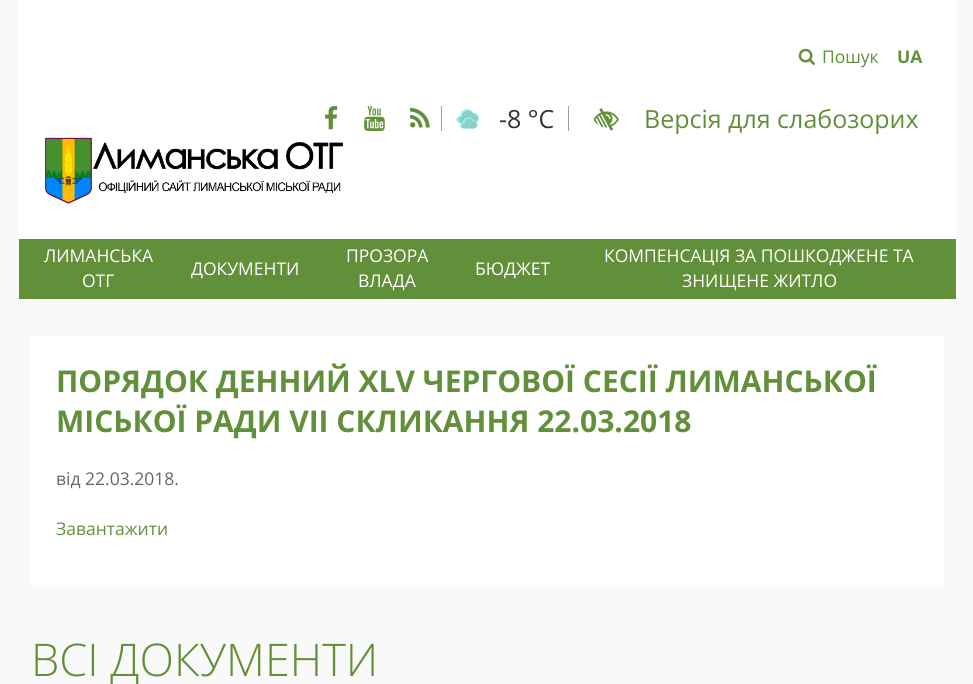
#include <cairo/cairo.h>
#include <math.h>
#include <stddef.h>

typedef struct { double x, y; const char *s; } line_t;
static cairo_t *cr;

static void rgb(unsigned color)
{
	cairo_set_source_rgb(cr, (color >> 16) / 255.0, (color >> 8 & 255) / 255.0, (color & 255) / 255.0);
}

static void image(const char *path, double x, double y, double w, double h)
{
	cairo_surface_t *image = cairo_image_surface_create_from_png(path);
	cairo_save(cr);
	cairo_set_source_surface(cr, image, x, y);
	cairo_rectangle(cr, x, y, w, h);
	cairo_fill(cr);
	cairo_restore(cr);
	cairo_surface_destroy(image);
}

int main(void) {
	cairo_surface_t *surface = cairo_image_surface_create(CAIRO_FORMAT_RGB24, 973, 684);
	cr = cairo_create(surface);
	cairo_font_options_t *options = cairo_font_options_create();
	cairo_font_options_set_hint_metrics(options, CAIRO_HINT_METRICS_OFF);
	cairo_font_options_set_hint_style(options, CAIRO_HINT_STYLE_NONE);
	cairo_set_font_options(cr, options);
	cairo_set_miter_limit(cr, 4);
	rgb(0xf9f9f9);
	cairo_paint(cr);
	rgb(0xffffff);
	cairo_rectangle(cr, 19, 0, 937, 239);
	cairo_fill(cr);
	image("img/1.png", 798, 48, 17, 17);
	image("img/2.png", 325, 106, 13, 24);
	image("img/3.png", 364, 106, 21, 26);
	image("img/4.png", 410, 107, 20, 21);
	rgb(0x9e9f9f);
	cairo_rectangle(cr, 441, 106, 1, 25);
	cairo_fill(cr);
	image("img/5.png", 456, 109, 23, 20);
	cairo_rectangle(cr, 568, 106, 1, 25);
	cairo_fill(cr);
	image("img/6.png", 593, 108, 26, 23);
	image("img/7.png", 45, 137, 298, 67);
	rgb(0x628f3a);
	cairo_rectangle(cr, 19, 239, 937, 60);
	cairo_fill(cr);
	rgb(0xffffff);
	cairo_rectangle(cr, 31, 336, 913, 249);
	cairo_fill(cr);
	cairo_select_font_face(cr, "Open Sans", CAIRO_FONT_SLANT_NORMAL, CAIRO_FONT_WEIGHT_NORMAL);
	cairo_set_font_size(cr, 17.5);
	rgb(0x628f3a);
	cairo_move_to(cr, 822, 63);
	cairo_show_text(cr, "Пошук");
	cairo_select_font_face(cr, "Open Sans", CAIRO_FONT_SLANT_NORMAL, CAIRO_FONT_WEIGHT_BOLD);
	cairo_move_to(cr, 897, 63);
	cairo_show_text(cr, "UA");
	cairo_select_font_face(cr, "Open Sans", CAIRO_FONT_SLANT_NORMAL, CAIRO_FONT_WEIGHT_NORMAL);
	cairo_set_font_size(cr, 25);
	rgb(0x333333);
	cairo_move_to(cr, 499, 128);
	cairo_show_text(cr, "-8 °С");
	rgb(0x628f3a);
	cairo_move_to(cr, 644, 128);
	cairo_show_text(cr, "Версія для слабозорих");
	cairo_set_font_size(cr, 17.5);
	rgb(0xffffff);
	{
		static const line_t items[] = {
			{44, 262, "ЛИМАНСЬКА"},
			{82, 287, "ОТГ"},
			{191, 275, "ДОКУМЕНТИ"},
			{346, 262, "ПРОЗОРА"},
			{358, 287, "ВЛАДА"},
			{475, 275, "БЮДЖЕТ"},
			{604, 262, "КОМПЕНСАЦІЯ ЗА ПОШКОДЖЕНЕ ТА"},
			{682, 287, "ЗНИЩЕНЕ ЖИТЛО"},
		};
		for (size_t i = 0; i < sizeof items / sizeof *items; i++) {
			cairo_move_to(cr, items[i].x, items[i].y);
			cairo_show_text(cr, items[i].s);
		}
	}
	cairo_select_font_face(cr, "Open Sans", CAIRO_FONT_SLANT_NORMAL, CAIRO_FONT_WEIGHT_BOLD);
	cairo_set_font_size(cr, 30);
	rgb(0x628f3a);
	cairo_move_to(cr, 56, 392);
	cairo_show_text(cr, "ПОРЯДОК ДЕННИЙ XLV ЧЕРГОВОЇ СЕСІЇ ЛИМАНСЬКОЇ");
	cairo_move_to(cr, 56, 432);
	cairo_show_text(cr, "МІСЬКОЇ РАДИ VII СКЛИКАННЯ 22.03.2018");
	cairo_select_font_face(cr, "Open Sans", CAIRO_FONT_SLANT_NORMAL, CAIRO_FONT_WEIGHT_NORMAL);
	cairo_set_font_size(cr, 17.5);
	rgb(0x666666);
	cairo_move_to(cr, 56, 485);
	cairo_show_text(cr, "від 22.03.2018.");
	rgb(0x628f3a);
	cairo_move_to(cr, 56, 535);
	cairo_show_text(cr, "Завантажити");
	cairo_select_font_face(cr, "Open Sans Light", CAIRO_FONT_SLANT_NORMAL, CAIRO_FONT_WEIGHT_NORMAL);
	cairo_set_font_size(cr, 45);
	cairo_move_to(cr, 31, 676);
	cairo_show_text(cr, "ВСІ ДОКУМЕНТИ");
	cairo_surface_write_to_png(surface, "page.png");
	cairo_font_options_destroy(options);
	cairo_destroy(cr);
	cairo_surface_destroy(surface);
	return 0;
}
